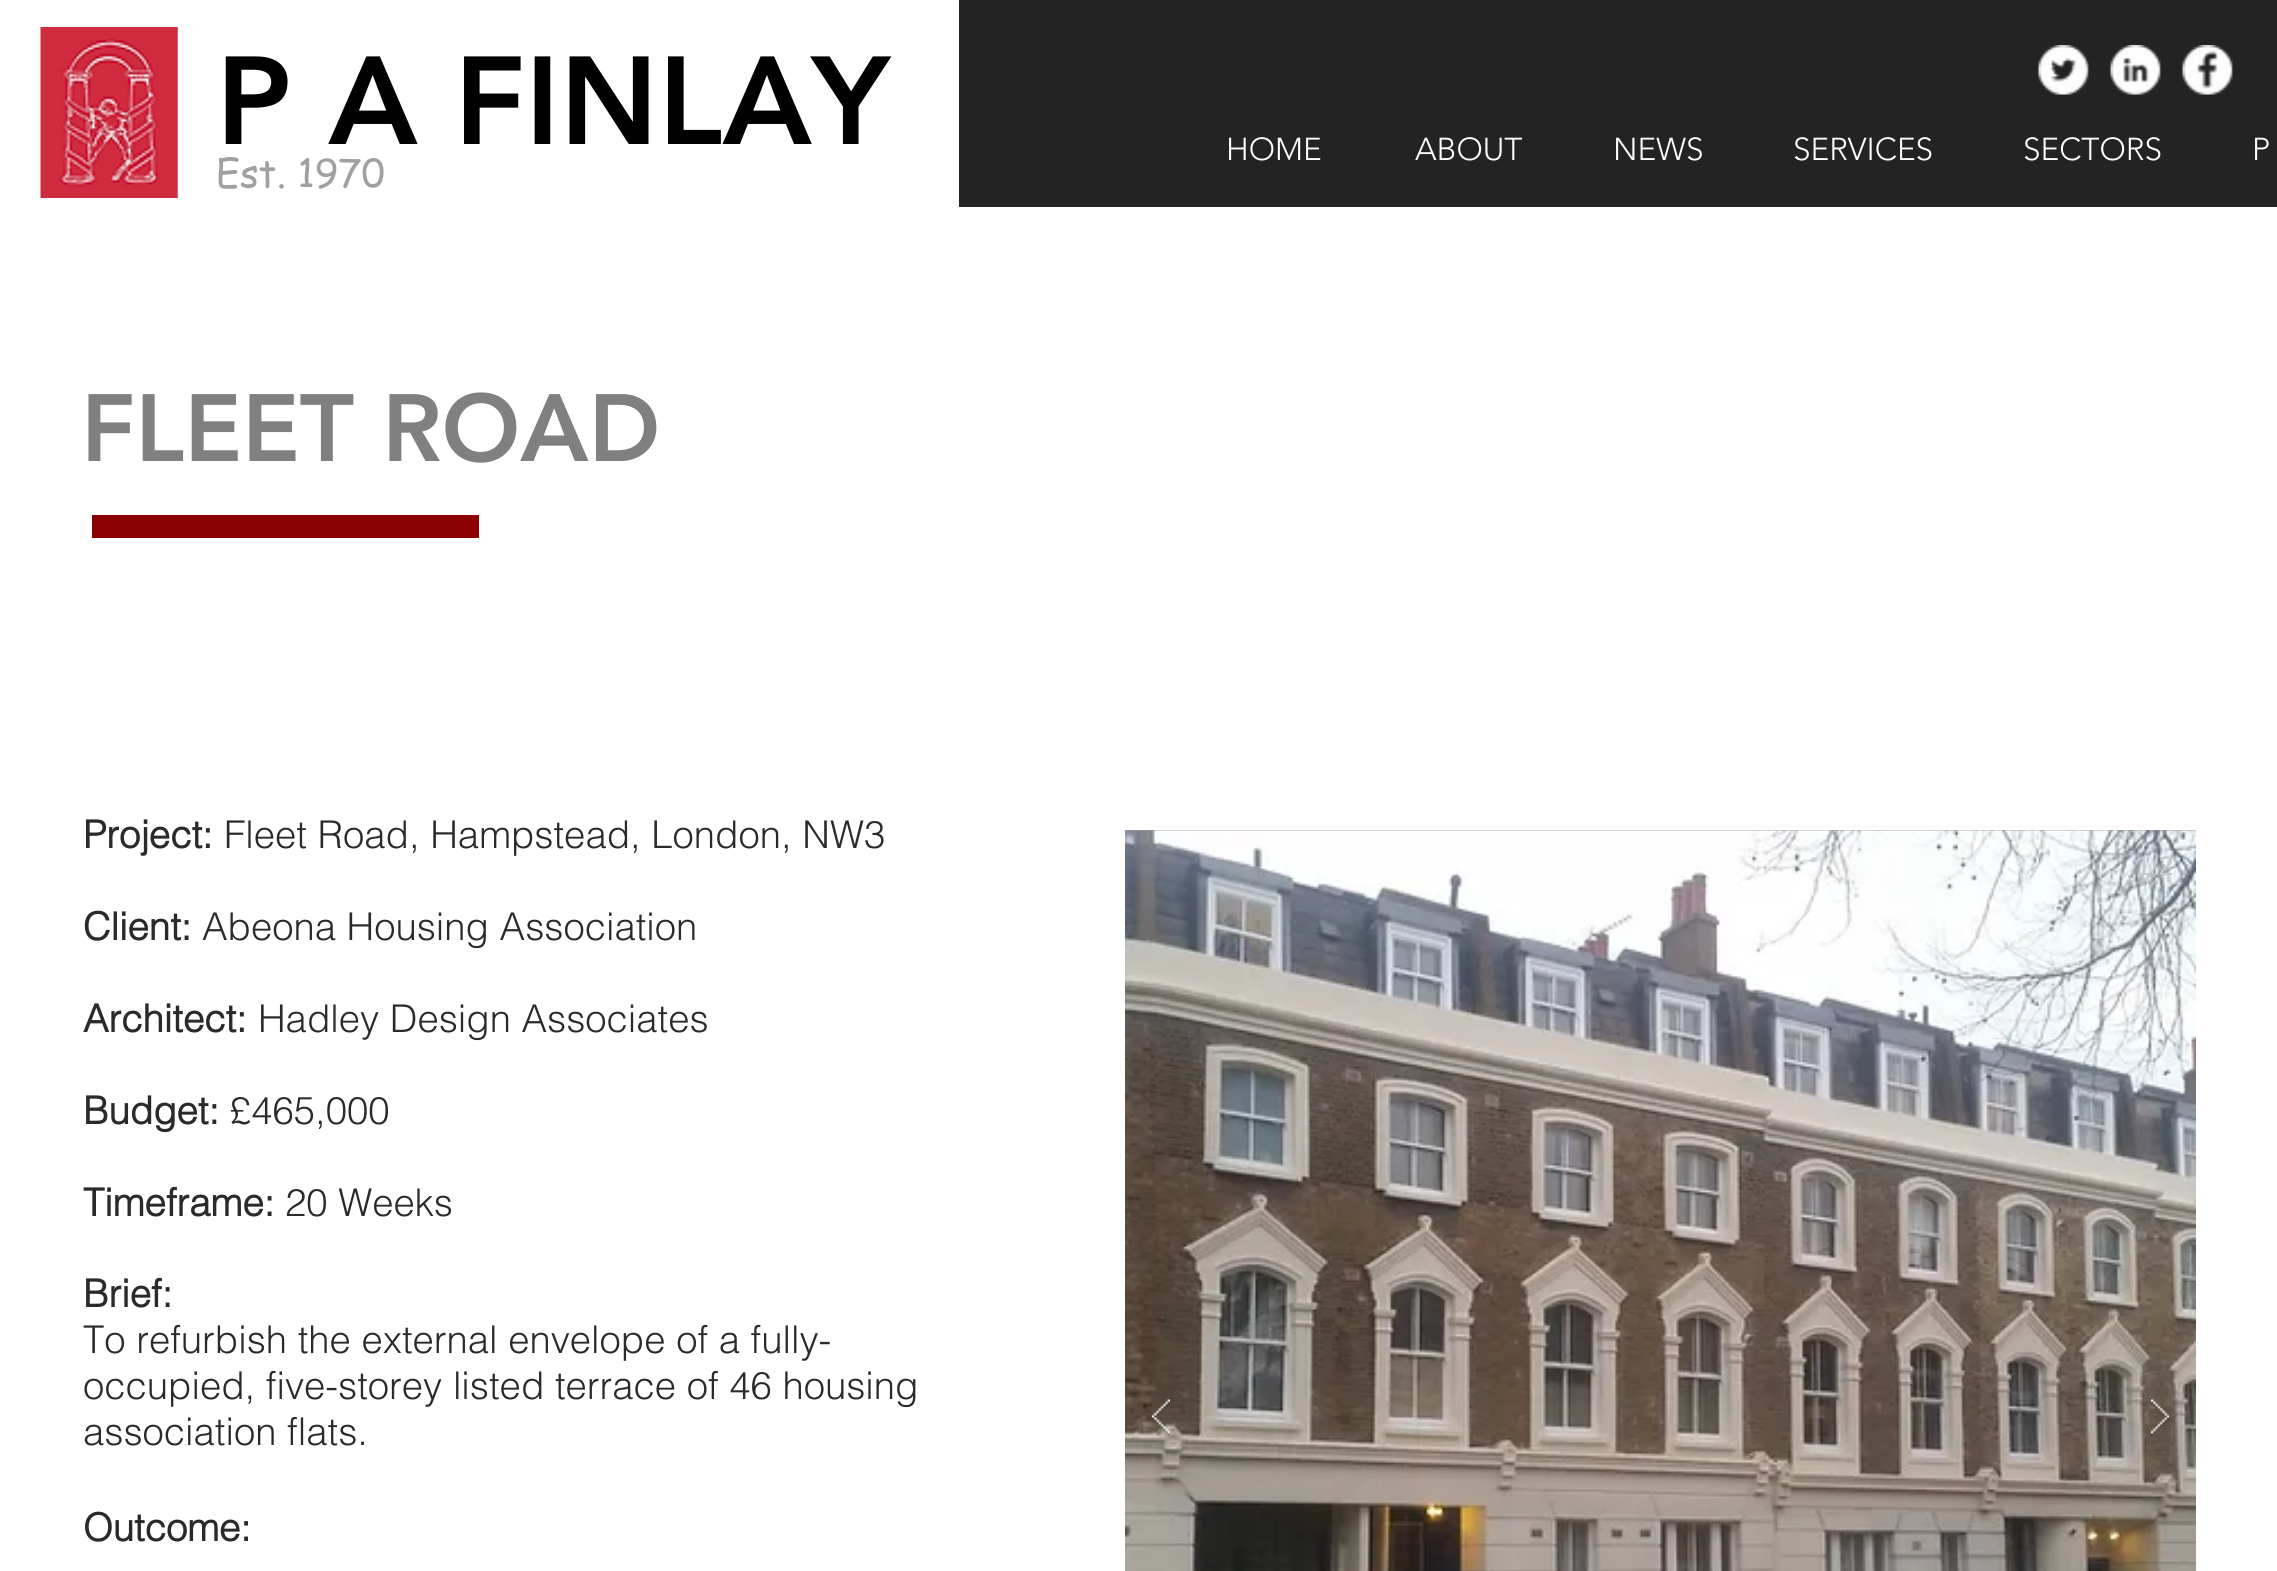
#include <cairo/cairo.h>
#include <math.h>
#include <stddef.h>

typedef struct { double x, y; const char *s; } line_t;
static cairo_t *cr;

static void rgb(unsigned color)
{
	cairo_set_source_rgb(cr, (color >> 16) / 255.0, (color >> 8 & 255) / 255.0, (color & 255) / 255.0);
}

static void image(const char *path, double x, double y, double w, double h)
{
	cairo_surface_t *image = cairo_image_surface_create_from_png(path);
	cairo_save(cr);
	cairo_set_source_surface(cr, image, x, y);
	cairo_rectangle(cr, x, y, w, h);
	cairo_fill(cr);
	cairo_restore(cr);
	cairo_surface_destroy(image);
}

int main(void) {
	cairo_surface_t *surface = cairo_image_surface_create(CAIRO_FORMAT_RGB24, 2277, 1571);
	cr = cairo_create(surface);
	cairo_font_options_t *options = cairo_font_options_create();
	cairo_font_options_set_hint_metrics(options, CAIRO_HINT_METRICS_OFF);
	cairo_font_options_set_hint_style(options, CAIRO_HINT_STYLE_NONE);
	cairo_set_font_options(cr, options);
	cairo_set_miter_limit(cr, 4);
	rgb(0xffffff);
	cairo_paint(cr);
	rgb(0x232323);
	cairo_rectangle(cr, 959, 0, 1318, 207);
	cairo_fill(cr);
	image("img/1.png", 40, 27, 138, 171);
	image("img/2.png", 2038, 45, 51, 50);
	image("img/3.png", 2110, 45, 51, 50);
	image("img/4.png", 2182, 45, 51, 50);
	rgb(0x8b0000);
	cairo_rectangle(cr, 92, 515, 387, 23);
	cairo_fill(cr);
	rgb(0xa0a09f);
	cairo_rectangle(cr, 1125, 830, 1071, 1);
	cairo_fill(cr);
	image("img/5.png", 1125, 830, 1071, 741);
	image("img/6.png", 1152, 1399, 18, 37);
	image("img/7.png", 2151, 1399, 18, 37);
	cairo_select_font_face(cr, "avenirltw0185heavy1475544 Black", CAIRO_FONT_SLANT_NORMAL, CAIRO_FONT_WEIGHT_NORMAL);
	cairo_set_font_size(cr, 123.75);
	rgb(0x000000);
	cairo_move_to(cr, 216, 144);
	cairo_show_text(cr, "P A FINLAY");
	cairo_select_font_face(cr, "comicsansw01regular", CAIRO_FONT_SLANT_NORMAL, CAIRO_FONT_WEIGHT_NORMAL);
	cairo_set_font_size(cr, 38.25);
	rgb(0xa0a09f);
	cairo_move_to(cr, 216, 187);
	cairo_show_text(cr, "Est. 1970");
	cairo_select_font_face(cr, "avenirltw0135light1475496 Light", CAIRO_FONT_SLANT_NORMAL, CAIRO_FONT_WEIGHT_NORMAL);
	cairo_set_font_size(cr, 31.5);
	rgb(0xffffff);
	{
		static const line_t items[] = {
			{1226, 160, "HOME"},
			{1415, 160, "ABOUT"},
			{1613, 160, "NEWS"},
			{1793, 160, "SERVICES"},
			{2023, 160, "SECTORS"},
			{2252, 160, "P"},
		};
		for (size_t i = 0; i < sizeof items / sizeof *items; i++) {
			cairo_move_to(cr, items[i].x, items[i].y);
			cairo_show_text(cr, items[i].s);
		}
	}
	cairo_select_font_face(cr, "avenirltw0185heavy1475544 Black", CAIRO_FONT_SLANT_NORMAL, CAIRO_FONT_WEIGHT_NORMAL);
	cairo_set_font_size(cr, 94.5);
	rgb(0x808080);
	cairo_move_to(cr, 81, 461);
	cairo_show_text(cr, "FLEET ROAD");
	cairo_select_font_face(cr, "helvetica", CAIRO_FONT_SLANT_NORMAL, CAIRO_FONT_WEIGHT_BOLD);
	cairo_set_font_size(cr, 38.25);
	rgb(0x2a2a2a);
	cairo_move_to(cr, 83, 848);
	cairo_show_text(cr, "Project:");
	cairo_select_font_face(cr, "helvetica Light", CAIRO_FONT_SLANT_NORMAL, CAIRO_FONT_WEIGHT_NORMAL);
	cairo_move_to(cr, 224, 848);
	cairo_show_text(cr, "Fleet Road, Hampstead, London, NW3");
	cairo_select_font_face(cr, "helvetica", CAIRO_FONT_SLANT_NORMAL, CAIRO_FONT_WEIGHT_BOLD);
	cairo_move_to(cr, 83, 940);
	cairo_show_text(cr, "Client:");
	cairo_select_font_face(cr, "helvetica Light", CAIRO_FONT_SLANT_NORMAL, CAIRO_FONT_WEIGHT_NORMAL);
	cairo_move_to(cr, 202, 940);
	cairo_show_text(cr, "Abeona Housing Association");
	cairo_select_font_face(cr, "helvetica", CAIRO_FONT_SLANT_NORMAL, CAIRO_FONT_WEIGHT_BOLD);
	cairo_move_to(cr, 83, 1032);
	cairo_show_text(cr, "Architect:");
	cairo_select_font_face(cr, "helvetica Light", CAIRO_FONT_SLANT_NORMAL, CAIRO_FONT_WEIGHT_NORMAL);
	cairo_move_to(cr, 258, 1032);
	cairo_show_text(cr, "Hadley Design Associates");
	cairo_select_font_face(cr, "helvetica", CAIRO_FONT_SLANT_NORMAL, CAIRO_FONT_WEIGHT_BOLD);
	cairo_move_to(cr, 83, 1124);
	cairo_show_text(cr, "Budget:");
	cairo_select_font_face(cr, "helvetica Light", CAIRO_FONT_SLANT_NORMAL, CAIRO_FONT_WEIGHT_NORMAL);
	cairo_move_to(cr, 230, 1124);
	cairo_show_text(cr, "£465,000");
	cairo_select_font_face(cr, "helvetica", CAIRO_FONT_SLANT_NORMAL, CAIRO_FONT_WEIGHT_BOLD);
	cairo_move_to(cr, 83, 1216);
	cairo_show_text(cr, "Timeframe:");
	cairo_select_font_face(cr, "helvetica Light", CAIRO_FONT_SLANT_NORMAL, CAIRO_FONT_WEIGHT_NORMAL);
	cairo_move_to(cr, 285, 1216);
	cairo_show_text(cr, "20 Weeks");
	cairo_select_font_face(cr, "helvetica", CAIRO_FONT_SLANT_NORMAL, CAIRO_FONT_WEIGHT_BOLD);
	cairo_move_to(cr, 83, 1307);
	cairo_show_text(cr, "Brief:");
	cairo_select_font_face(cr, "helvetica Light", CAIRO_FONT_SLANT_NORMAL, CAIRO_FONT_WEIGHT_NORMAL);
	{
		static const line_t items[] = {
			{83, 1353, "To refurbish the external envelope of a fully-"},
			{83, 1399, "occupied, five-storey listed terrace of 46 housing"},
			{83, 1445, "association flats."},
		};
		for (size_t i = 0; i < sizeof items / sizeof *items; i++) {
			cairo_move_to(cr, items[i].x, items[i].y);
			cairo_show_text(cr, items[i].s);
		}
	}
	cairo_select_font_face(cr, "helvetica", CAIRO_FONT_SLANT_NORMAL, CAIRO_FONT_WEIGHT_BOLD);
	cairo_move_to(cr, 83, 1541);
	cairo_show_text(cr, "Outcome:");
	cairo_select_font_face(cr, "Liberation Sans", CAIRO_FONT_SLANT_NORMAL, CAIRO_FONT_WEIGHT_NORMAL);
	cairo_set_font_size(cr, 27);
	rgb(0xc4cad1);
	cairo_move_to(cr, 2136, 875);
	cairo_show_text(cr, "1/2");
	cairo_surface_write_to_png(surface, "page.png");
	cairo_font_options_destroy(options);
	cairo_destroy(cr);
	cairo_surface_destroy(surface);
	return 0;
}
